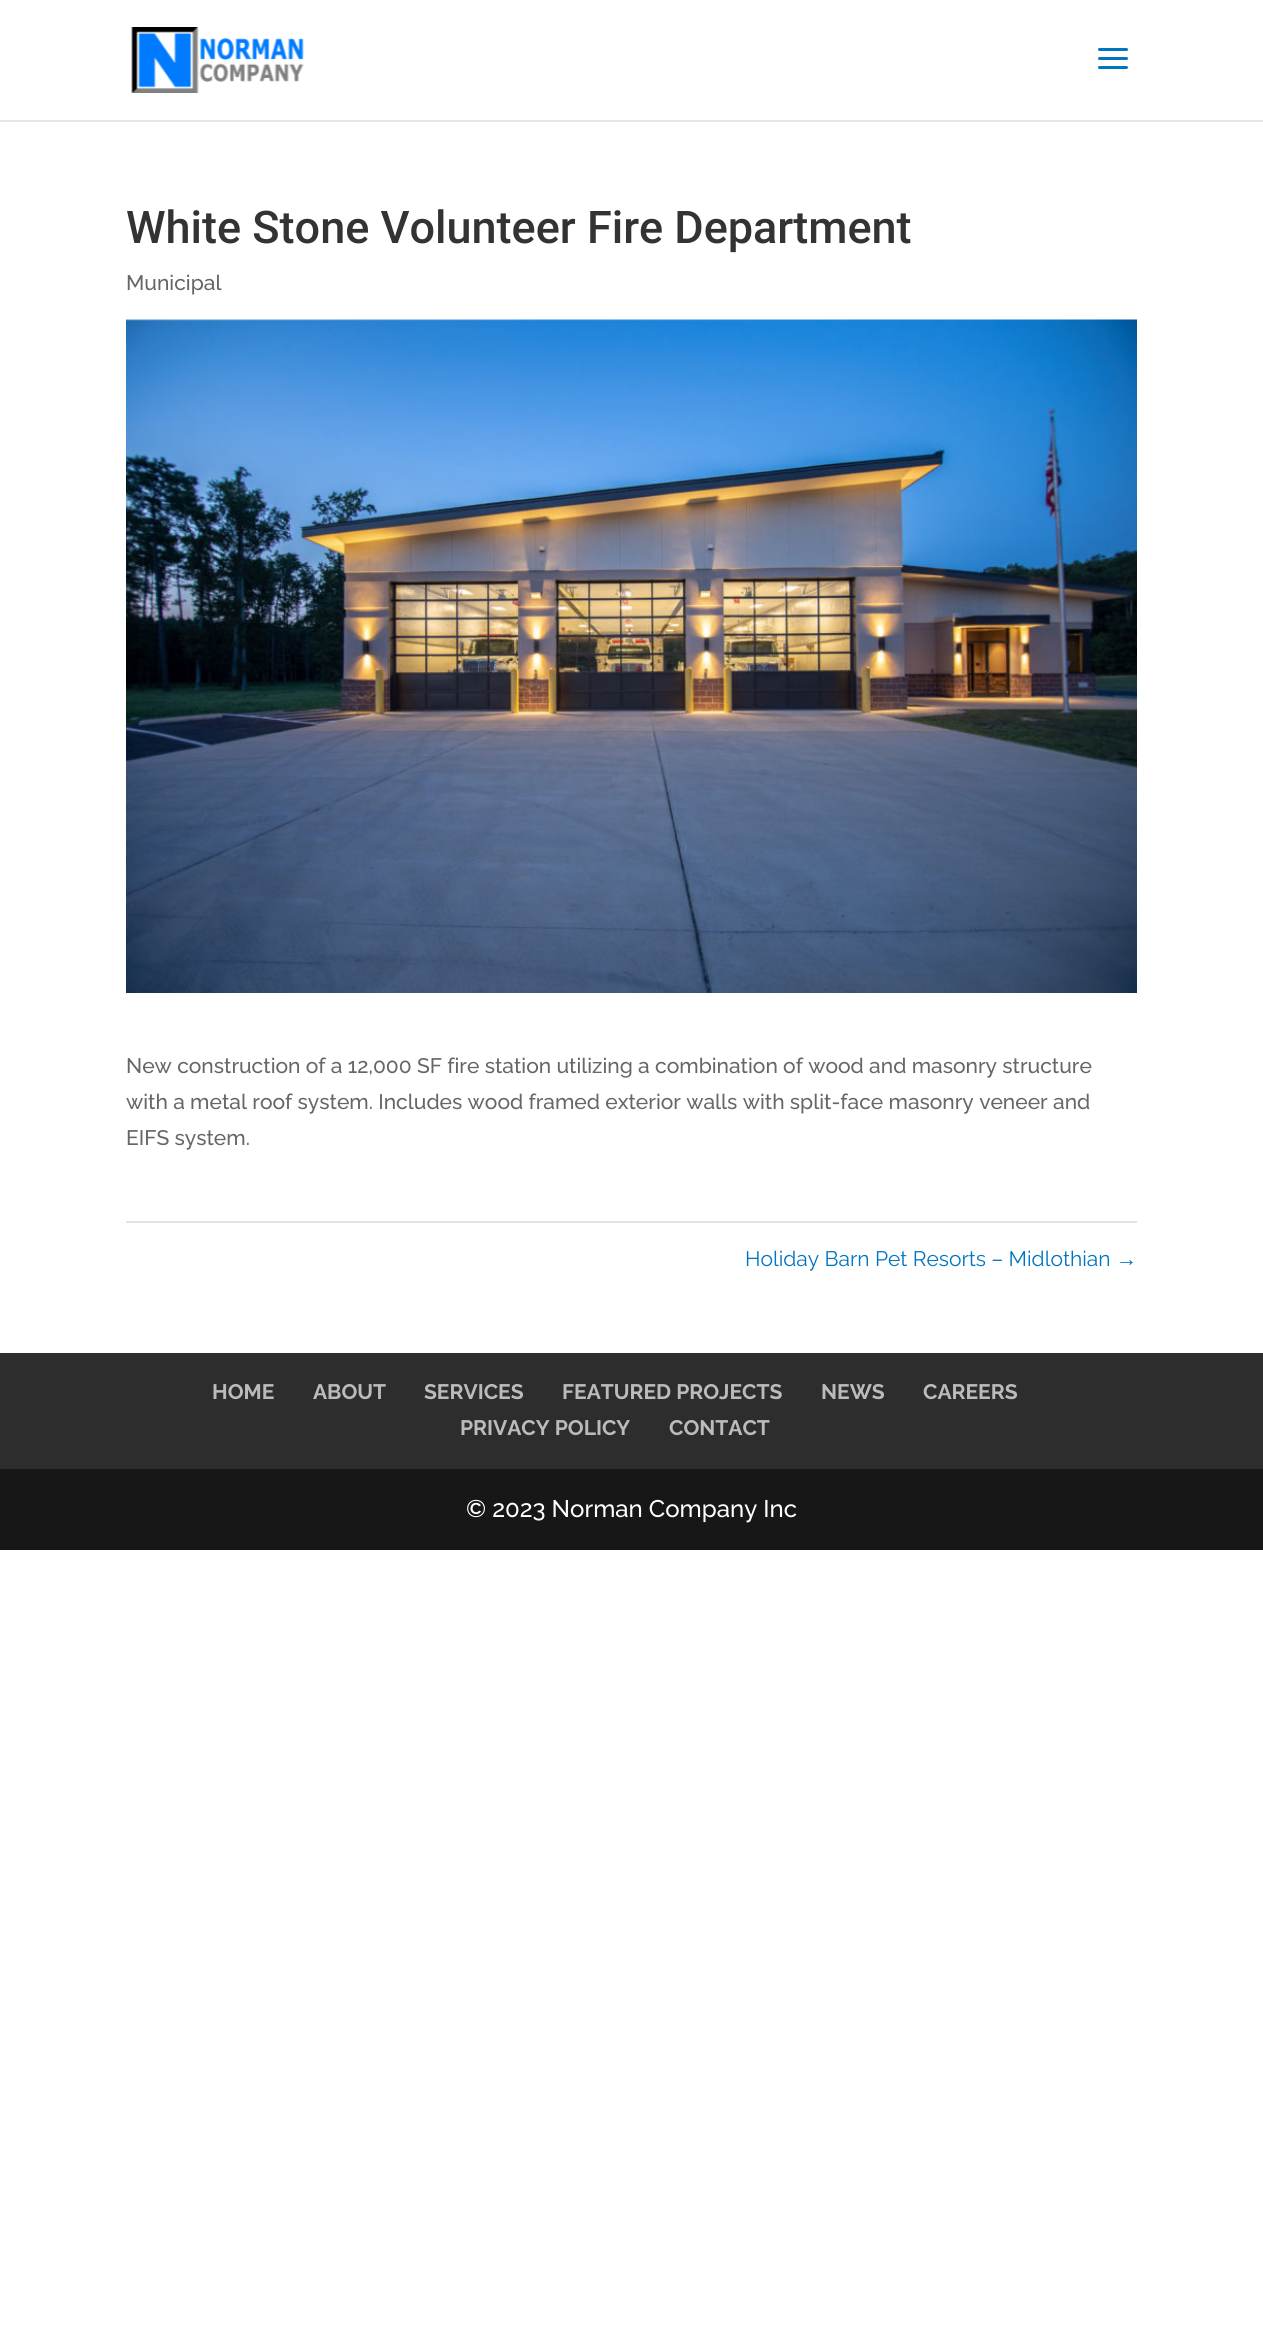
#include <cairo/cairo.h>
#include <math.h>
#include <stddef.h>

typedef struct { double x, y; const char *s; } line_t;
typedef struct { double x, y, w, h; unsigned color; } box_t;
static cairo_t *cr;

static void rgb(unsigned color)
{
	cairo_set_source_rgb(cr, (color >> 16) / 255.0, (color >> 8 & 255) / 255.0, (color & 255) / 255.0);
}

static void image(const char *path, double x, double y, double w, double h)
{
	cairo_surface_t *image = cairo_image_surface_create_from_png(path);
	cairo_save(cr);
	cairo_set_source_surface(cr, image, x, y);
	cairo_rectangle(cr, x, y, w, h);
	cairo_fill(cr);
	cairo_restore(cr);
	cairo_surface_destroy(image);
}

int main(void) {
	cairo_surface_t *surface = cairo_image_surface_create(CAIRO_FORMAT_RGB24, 1263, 2331);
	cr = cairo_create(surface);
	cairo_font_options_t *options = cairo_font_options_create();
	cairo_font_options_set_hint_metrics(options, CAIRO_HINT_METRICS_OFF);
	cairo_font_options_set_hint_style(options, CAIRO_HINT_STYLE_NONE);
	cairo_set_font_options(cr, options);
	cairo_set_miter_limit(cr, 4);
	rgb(0xffffff);
	cairo_paint(cr);
	rgb(0xe6e6e6);
	cairo_rectangle(cr, 0, 120, 1263, 2);
	cairo_fill(cr);
	image("img/1.png", 131, 27, 173, 66);
	image("img/2.png", 1098, 48, 30, 21);
	image("img/3.png", 126, 319, 1011, 674);
	{
		static const box_t items[] = {
			{126, 1221, 1011, 2, 0xe2e2e2},
			{0, 1353, 1263, 116, 0x2d2d2d},
			{0, 1469, 1263, 81, 0x171717},
		};
		for (size_t i = 0; i < sizeof items / sizeof *items; i++) {
			rgb(items[i].color);
			cairo_rectangle(cr, items[i].x, items[i].y, items[i].w, items[i].h);
			cairo_fill(cr);
		}
	}
	cairo_select_font_face(cr, "Roboto Medium", CAIRO_FONT_SLANT_NORMAL, CAIRO_FONT_WEIGHT_NORMAL);
	cairo_set_font_size(cr, 45);
	rgb(0x333333);
	cairo_move_to(cr, 126, 243);
	cairo_show_text(cr, "White Stone Volunteer Fire Department");
	cairo_select_font_face(cr, "Raleway Medium", CAIRO_FONT_SLANT_NORMAL, CAIRO_FONT_WEIGHT_NORMAL);
	cairo_set_font_size(cr, 21);
	rgb(0x666666);
	{
		static const line_t items[] = {
			{126, 290, "Municipal"},
			{126, 1073, "New construction of a 12,000 SF fire station utilizing a combination of wood and masonry structure"},
			{126, 1109, "with a metal roof system. Includes wood framed exterior walls with split-face masonry veneer and"},
			{126, 1145, "EIFS system."},
		};
		for (size_t i = 0; i < sizeof items / sizeof *items; i++) {
			cairo_move_to(cr, items[i].x, items[i].y);
			cairo_show_text(cr, items[i].s);
		}
	}
	cairo_select_font_face(cr, "Raleway", CAIRO_FONT_SLANT_NORMAL, CAIRO_FONT_WEIGHT_NORMAL);
	rgb(0x0076c0);
	cairo_move_to(cr, 745, 1266);
	cairo_show_text(cr, "Holiday Barn Pet Resorts – Midlothian");
	cairo_select_font_face(cr, "Liberation Sans", CAIRO_FONT_SLANT_NORMAL, CAIRO_FONT_WEIGHT_NORMAL);
	cairo_move_to(cr, 1116, 1266);
	cairo_show_text(cr, "→");
	cairo_select_font_face(cr, "Raleway", CAIRO_FONT_SLANT_NORMAL, CAIRO_FONT_WEIGHT_BOLD);
	rgb(0xbbbbbb);
	{
		static const line_t items[] = {
			{212, 1399, "HOME"},
			{313, 1399, "ABOUT"},
			{424, 1399, "SERVICES"},
			{562, 1399, "FEATURED PROJECTS"},
			{821, 1399, "NEWS"},
			{923, 1399, "CAREERS"},
			{460, 1435, "PRIVACY POLICY"},
			{669, 1435, "CONTACT"},
		};
		for (size_t i = 0; i < sizeof items / sizeof *items; i++) {
			cairo_move_to(cr, items[i].x, items[i].y);
			cairo_show_text(cr, items[i].s);
		}
	}
	cairo_select_font_face(cr, "Raleway Medium", CAIRO_FONT_SLANT_NORMAL, CAIRO_FONT_WEIGHT_NORMAL);
	cairo_set_font_size(cr, 24);
	rgb(0xffffff);
	cairo_move_to(cr, 466, 1517);
	cairo_show_text(cr, "© 2023 Norman Company Inc");
	cairo_surface_write_to_png(surface, "page.png");
	cairo_font_options_destroy(options);
	cairo_destroy(cr);
	cairo_surface_destroy(surface);
	return 0;
}
